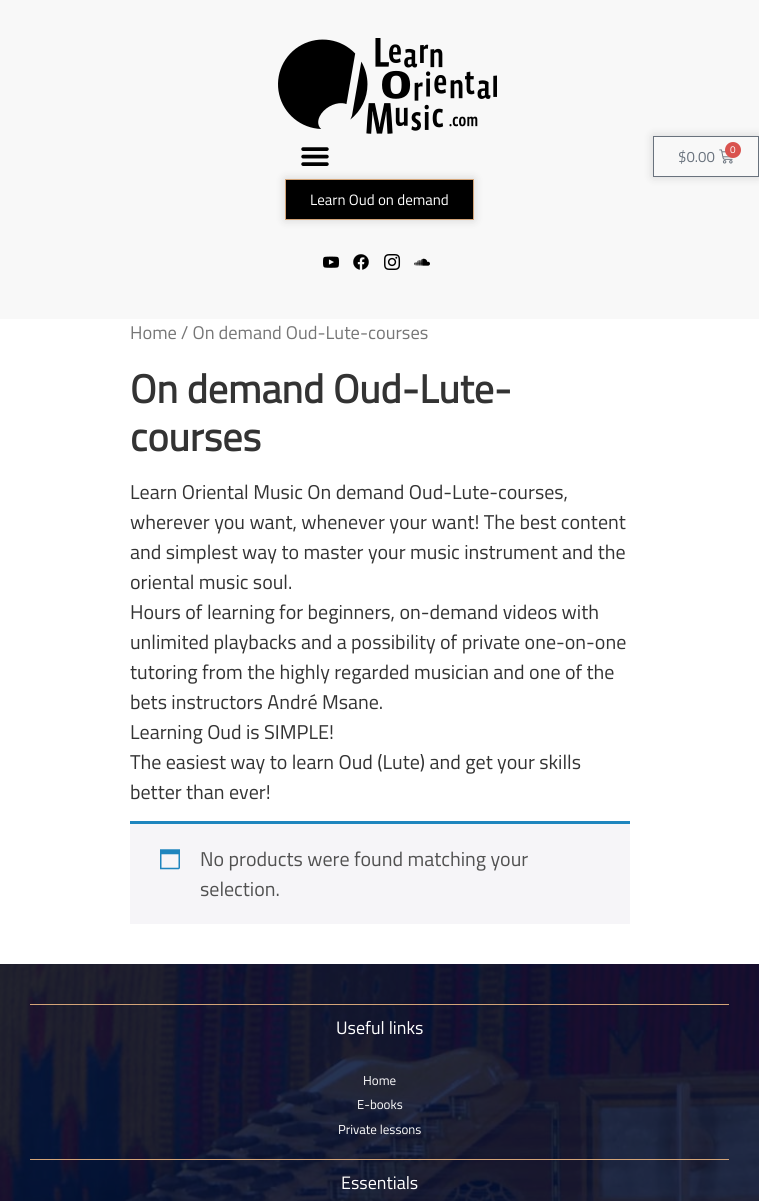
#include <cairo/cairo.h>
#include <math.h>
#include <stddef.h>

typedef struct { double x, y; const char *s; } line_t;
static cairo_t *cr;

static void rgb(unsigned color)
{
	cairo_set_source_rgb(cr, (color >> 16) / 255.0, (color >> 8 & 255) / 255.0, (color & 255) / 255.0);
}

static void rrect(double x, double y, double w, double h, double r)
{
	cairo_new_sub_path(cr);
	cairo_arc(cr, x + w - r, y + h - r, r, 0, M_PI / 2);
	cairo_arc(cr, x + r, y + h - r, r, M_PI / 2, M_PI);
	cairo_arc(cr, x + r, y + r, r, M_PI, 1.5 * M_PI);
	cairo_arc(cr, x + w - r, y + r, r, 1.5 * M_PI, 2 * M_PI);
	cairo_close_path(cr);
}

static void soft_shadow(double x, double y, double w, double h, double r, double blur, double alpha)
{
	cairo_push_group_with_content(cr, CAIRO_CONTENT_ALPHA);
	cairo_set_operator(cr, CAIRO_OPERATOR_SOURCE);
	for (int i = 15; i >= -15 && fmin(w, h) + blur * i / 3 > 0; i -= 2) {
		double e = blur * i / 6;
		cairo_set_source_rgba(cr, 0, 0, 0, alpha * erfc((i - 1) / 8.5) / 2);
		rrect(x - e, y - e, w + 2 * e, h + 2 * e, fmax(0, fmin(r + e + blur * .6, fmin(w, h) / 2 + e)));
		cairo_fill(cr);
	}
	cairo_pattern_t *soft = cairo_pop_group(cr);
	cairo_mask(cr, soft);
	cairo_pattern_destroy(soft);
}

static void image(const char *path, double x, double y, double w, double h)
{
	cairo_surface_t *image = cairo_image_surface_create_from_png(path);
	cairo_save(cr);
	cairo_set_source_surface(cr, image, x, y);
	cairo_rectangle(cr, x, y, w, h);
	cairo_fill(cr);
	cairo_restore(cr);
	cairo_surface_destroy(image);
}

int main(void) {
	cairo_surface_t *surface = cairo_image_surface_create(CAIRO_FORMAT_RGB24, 759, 1201);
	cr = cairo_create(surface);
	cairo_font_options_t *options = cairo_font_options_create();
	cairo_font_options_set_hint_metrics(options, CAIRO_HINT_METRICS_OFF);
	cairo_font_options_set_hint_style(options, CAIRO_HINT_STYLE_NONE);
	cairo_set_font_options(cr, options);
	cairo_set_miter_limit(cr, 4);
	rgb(0xffffff);
	cairo_paint(cr);
	rgb(0xf8f8f8);
	cairo_rectangle(cr, 0, 0, 759, 319);
	cairo_fill(cr);
	image("img/1.png", 278, 38, 219, 96);
	image("img/2.png", 301, 147, 28, 19);
	cairo_save(cr);
	cairo_set_fill_rule(cr, CAIRO_FILL_RULE_EVEN_ODD);
	cairo_new_path(cr);
	cairo_move_to(cr, 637, 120);
	cairo_line_to(cr, 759, 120);
	cairo_line_to(cr, 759, 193);
	cairo_line_to(cr, 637, 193);
	cairo_close_path(cr);
	cairo_move_to(cr, 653, 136);
	cairo_line_to(cr, 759, 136);
	cairo_line_to(cr, 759, 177);
	cairo_line_to(cr, 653, 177);
	cairo_close_path(cr);
	cairo_clip(cr);
	rgb(0x000000);
	soft_shadow(653, 136, 106, 41, 0, 5, 0.14);
	cairo_restore(cr);
	cairo_rectangle(cr, 653.5, 136.5, 105, 40);
	rgb(0x69727d);
	cairo_set_line_width(cr, 1);
	cairo_stroke(cr);
	image("img/3.png", 719, 149, 14, 15);
	rgb(0xd9534f);
	cairo_arc(cr, 733, 150, 8, 0, 2 * M_PI);
	cairo_fill(cr);
	rgb(0x000000);
	soft_shadow(285, 179, 189, 41, 0, 5, 0.14);
	rgb(0x000000);
	cairo_rectangle(cr, 285.5, 179.5, 188, 40);
	cairo_fill_preserve(cr);
	rgb(0xd3a478);
	cairo_stroke(cr);
	image("img/4.png", 323, 256, 16, 12);
	image("img/5.png", 353, 254, 16, 16);
	image("img/6.png", 384, 254, 17, 16);
	image("img/7.png", 414, 258, 16, 8);
	rgb(0xf6f5f8);
	cairo_rectangle(cr, 130, 824, 500, 100);
	cairo_fill(cr);
	rgb(0x1e85be);
	cairo_rectangle(cr, 130, 821, 500, 3);
	cairo_fill(cr);
	image("img/8.png", 160, 849, 20, 21);
	image("img/9.png", 0, 964, 759, 237);
	rgb(0xd3a478);
	cairo_rectangle(cr, 30, 1004, 699, 1);
	cairo_fill(cr);
	cairo_rectangle(cr, 30, 1159, 699, 1);
	cairo_fill(cr);
	cairo_select_font_face(cr, "Cairo", CAIRO_FONT_SLANT_NORMAL, CAIRO_FONT_WEIGHT_NORMAL);
	cairo_set_font_size(cr, 15);
	rgb(0x69727d);
	cairo_move_to(cr, 678, 162);
	cairo_show_text(cr, "$0.00");
	cairo_set_font_size(cr, 10);
	rgb(0xffffff);
	cairo_move_to(cr, 730, 153);
	cairo_show_text(cr, "0");
	cairo_set_font_size(cr, 15);
	cairo_move_to(cr, 310, 205);
	cairo_show_text(cr, "Learn Oud on demand");
	cairo_set_font_size(cr, 18.4);
	rgb(0x767676);
	cairo_move_to(cr, 130, 339);
	cairo_show_text(cr, "Home / On demand Oud-Lute-courses");
	cairo_select_font_face(cr, "Cairo", CAIRO_FONT_SLANT_NORMAL, CAIRO_FONT_WEIGHT_BOLD);
	cairo_set_font_size(cr, 40);
	rgb(0x333333);
	cairo_move_to(cr, 130, 403);
	cairo_show_text(cr, "On demand Oud-Lute-");
	cairo_move_to(cr, 130, 451);
	cairo_show_text(cr, "courses");
	cairo_select_font_face(cr, "Cairo", CAIRO_FONT_SLANT_NORMAL, CAIRO_FONT_WEIGHT_NORMAL);
	cairo_set_font_size(cr, 20);
	{
		static const line_t items[] = {
			{130, 499, "Learn Oriental Music On demand Oud-Lute-courses,"},
			{130, 529, "wherever you want, whenever your want! The best content"},
			{130, 559, "and simplest way to master your music instrument and the"},
			{130, 589, "oriental music soul."},
			{130, 619, "Hours of learning for beginners, on-demand videos with"},
			{130, 649, "unlimited playbacks and a possibility of private one-on-one"},
			{130, 679, "tutoring from the highly regarded musician and one of the"},
			{130, 709, "bets instructors André Msane."},
			{130, 739, "Learning Oud is SIMPLE!"},
			{130, 769, "The easiest way to learn Oud (Lute) and get your skills"},
			{130, 799, "better than ever!"},
		};
		for (size_t i = 0; i < sizeof items / sizeof *items; i++) {
			cairo_move_to(cr, items[i].x, items[i].y);
			cairo_show_text(cr, items[i].s);
		}
	}
	rgb(0x515151);
	cairo_move_to(cr, 200, 866);
	cairo_show_text(cr, "No products were found matching your");
	cairo_move_to(cr, 200, 896);
	cairo_show_text(cr, "selection.");
	cairo_set_font_size(cr, 18);
	rgb(0xffffff);
	cairo_move_to(cr, 336, 1034);
	cairo_show_text(cr, "Useful links");
	cairo_set_font_size(cr, 13);
	{
		static const line_t items[] = {
			{363, 1085, "Home"},
			{357, 1109, "E-books"},
			{338, 1134, "Private lessons"},
		};
		for (size_t i = 0; i < sizeof items / sizeof *items; i++) {
			cairo_move_to(cr, items[i].x, items[i].y);
			cairo_show_text(cr, items[i].s);
		}
	}
	cairo_set_font_size(cr, 18);
	cairo_move_to(cr, 341, 1189);
	cairo_show_text(cr, "Essentials");
	cairo_surface_write_to_png(surface, "page.png");
	cairo_font_options_destroy(options);
	cairo_destroy(cr);
	cairo_surface_destroy(surface);
	return 0;
}
